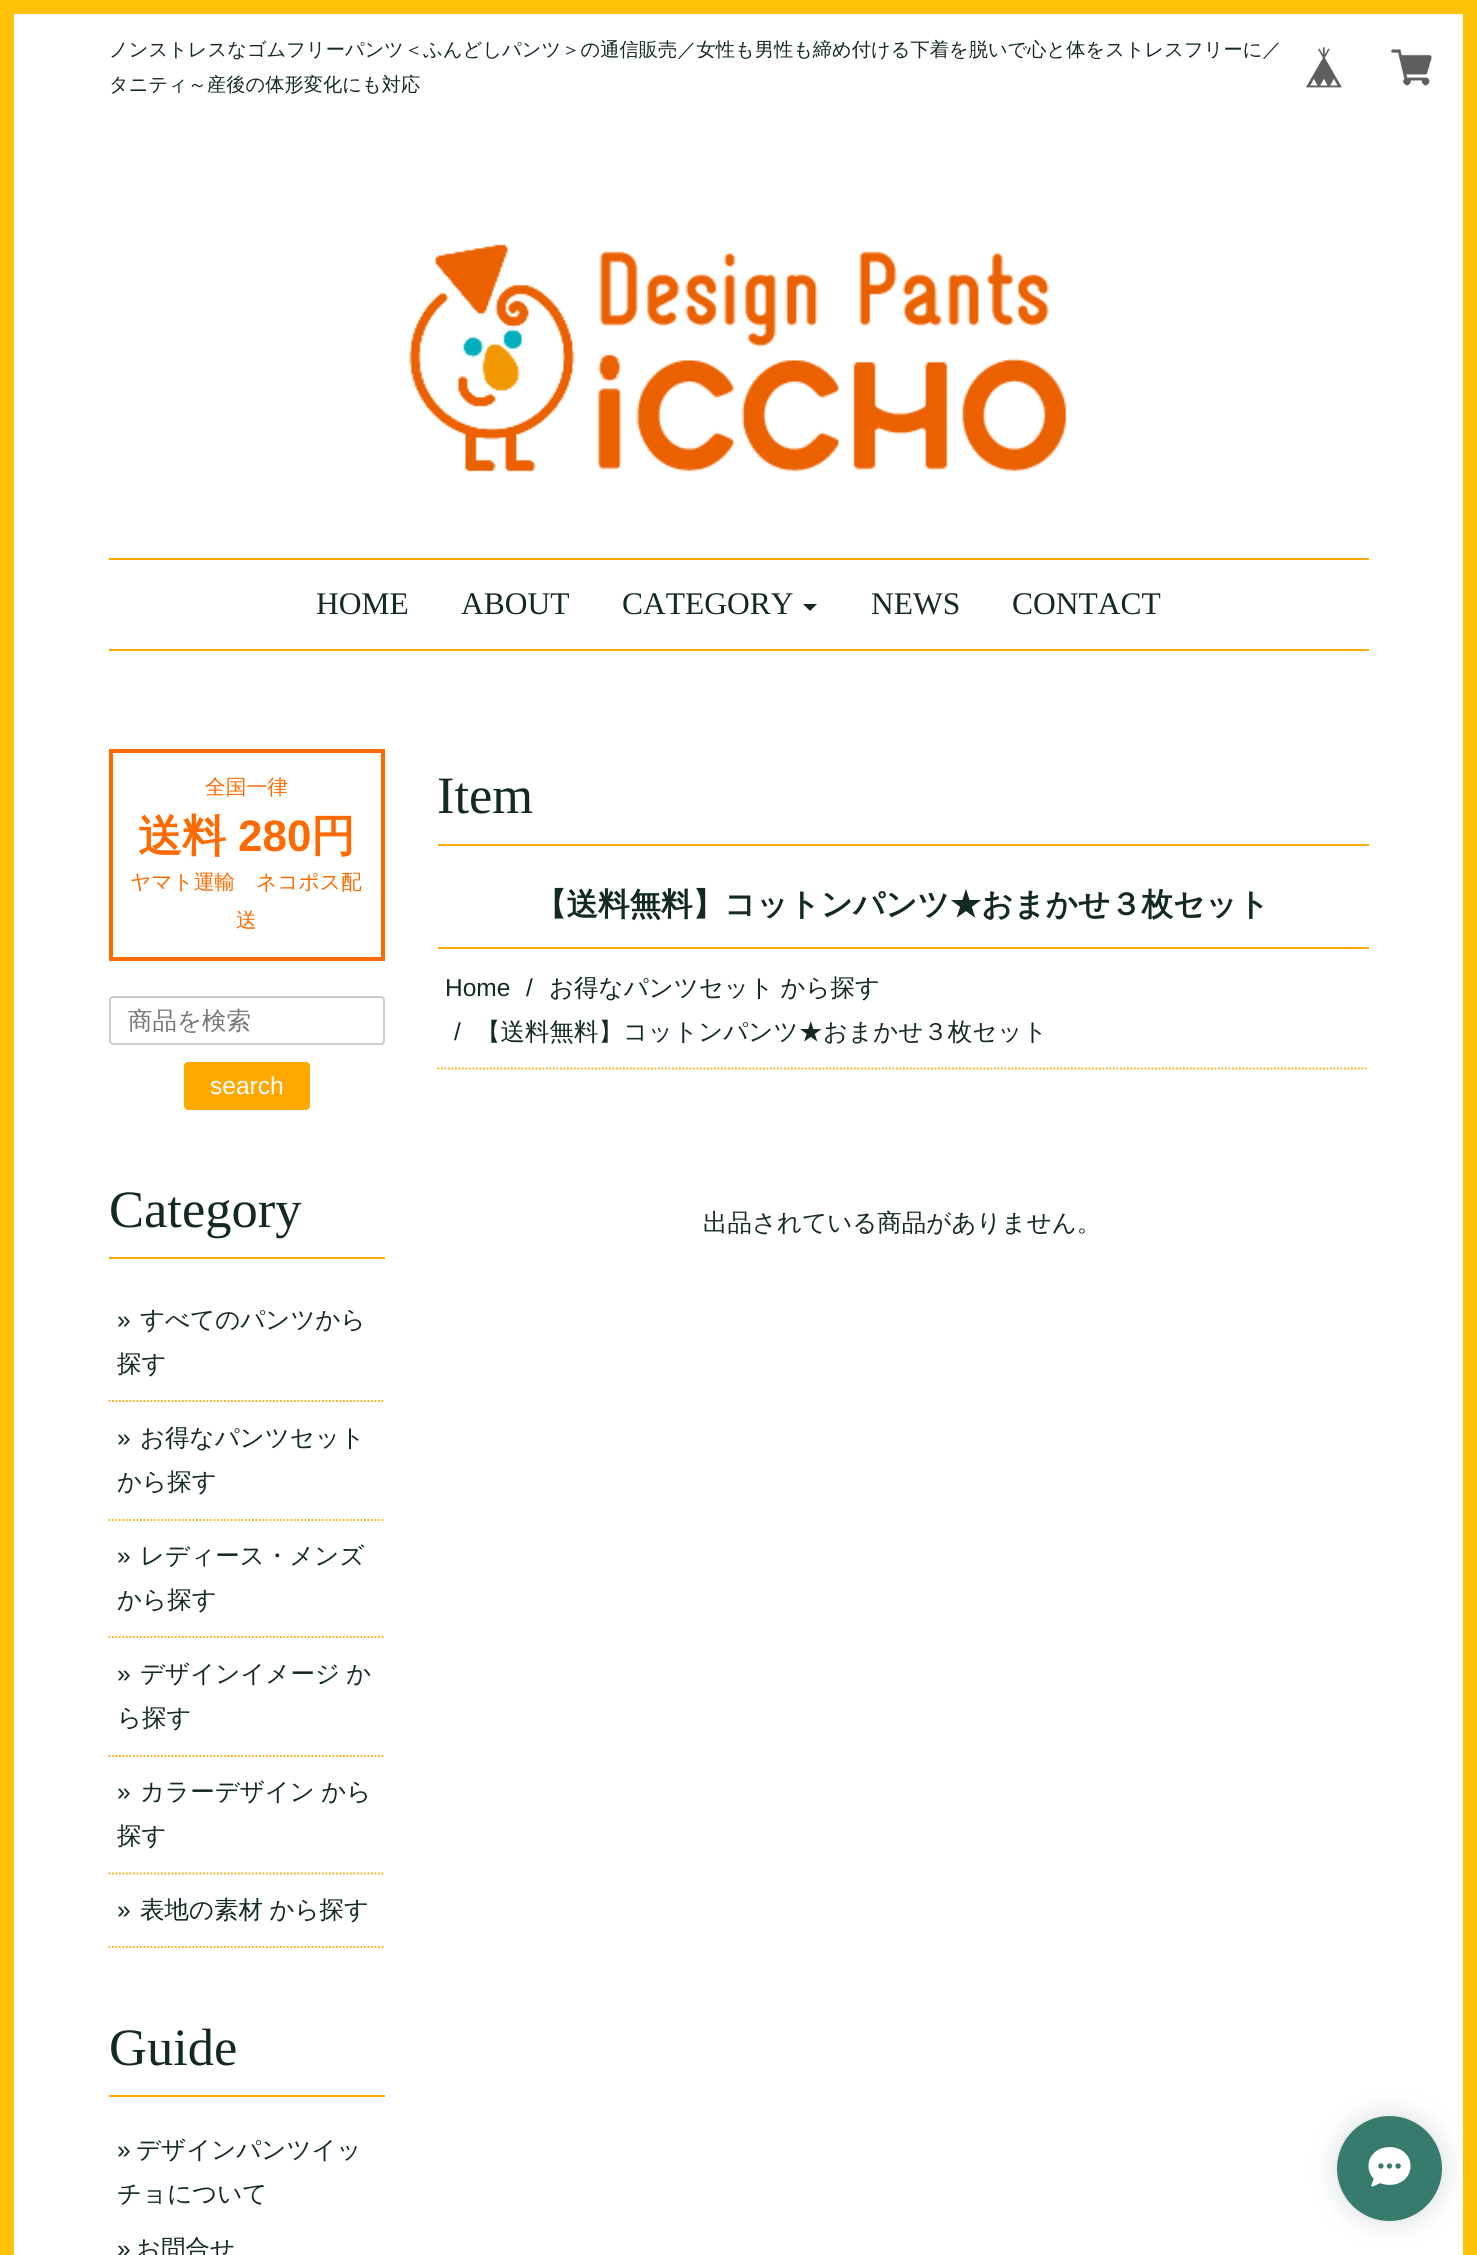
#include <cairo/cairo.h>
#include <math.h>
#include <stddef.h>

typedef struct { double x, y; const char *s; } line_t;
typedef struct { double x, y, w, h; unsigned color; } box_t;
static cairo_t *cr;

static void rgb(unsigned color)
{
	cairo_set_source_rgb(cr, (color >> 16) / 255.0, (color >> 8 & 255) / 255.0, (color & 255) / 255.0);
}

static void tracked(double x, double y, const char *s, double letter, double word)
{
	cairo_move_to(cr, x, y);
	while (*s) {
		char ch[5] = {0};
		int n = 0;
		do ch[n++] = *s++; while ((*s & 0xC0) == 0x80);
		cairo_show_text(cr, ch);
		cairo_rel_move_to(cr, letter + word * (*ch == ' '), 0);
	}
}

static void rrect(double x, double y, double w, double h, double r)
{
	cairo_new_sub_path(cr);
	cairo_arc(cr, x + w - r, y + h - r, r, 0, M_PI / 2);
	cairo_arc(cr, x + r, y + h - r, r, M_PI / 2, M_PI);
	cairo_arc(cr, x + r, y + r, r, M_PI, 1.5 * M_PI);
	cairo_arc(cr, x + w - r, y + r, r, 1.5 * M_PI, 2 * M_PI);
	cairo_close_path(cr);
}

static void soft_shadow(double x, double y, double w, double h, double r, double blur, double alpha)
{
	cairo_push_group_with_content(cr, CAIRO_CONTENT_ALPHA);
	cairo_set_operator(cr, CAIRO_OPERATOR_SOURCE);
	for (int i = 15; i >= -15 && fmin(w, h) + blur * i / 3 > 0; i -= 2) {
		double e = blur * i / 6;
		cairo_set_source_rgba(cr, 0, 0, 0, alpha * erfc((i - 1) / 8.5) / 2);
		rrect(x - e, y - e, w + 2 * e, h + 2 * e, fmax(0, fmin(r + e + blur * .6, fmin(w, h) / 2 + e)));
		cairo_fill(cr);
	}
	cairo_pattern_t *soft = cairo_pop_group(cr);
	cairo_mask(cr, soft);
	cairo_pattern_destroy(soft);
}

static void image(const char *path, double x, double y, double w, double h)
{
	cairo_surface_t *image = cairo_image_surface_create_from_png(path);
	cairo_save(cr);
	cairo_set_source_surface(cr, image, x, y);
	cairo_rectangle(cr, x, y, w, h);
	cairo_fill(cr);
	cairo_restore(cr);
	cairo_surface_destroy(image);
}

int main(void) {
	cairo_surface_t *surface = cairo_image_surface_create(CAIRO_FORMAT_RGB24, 1477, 2255);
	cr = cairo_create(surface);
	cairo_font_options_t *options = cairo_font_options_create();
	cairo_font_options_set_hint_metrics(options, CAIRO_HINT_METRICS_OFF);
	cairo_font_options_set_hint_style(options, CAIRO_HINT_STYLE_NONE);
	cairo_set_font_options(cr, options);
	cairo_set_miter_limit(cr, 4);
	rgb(0xffffff);
	cairo_paint(cr);
	cairo_rectangle(cr, 7, 7, 1463, 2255);
	rgb(0xffc206);
	cairo_set_line_width(cr, 14);
	cairo_stroke(cr);
	image("img/1.png", 409, 244, 658, 228);
	rgb(0xffa900);
	cairo_rectangle(cr, 109, 558, 1260, 2);
	cairo_fill(cr);
	cairo_rectangle(cr, 109, 649, 1260, 2);
	cairo_fill(cr);
	rgb(0x122924);
	cairo_new_path(cr);
	cairo_move_to(cr, 803, 604);
	cairo_line_to(cr, 817, 604);
	cairo_line_to(cr, 810, 611);
	cairo_close_path(cr);
	cairo_fill(cr);
	image("img/2.png", 1306, 47, 36, 41);
	image("img/3.png", 1391, 49, 41, 37);
	cairo_rectangle(cr, 111, 751, 272, 208);
	rgb(0xff6a00);
	cairo_set_line_width(cr, 4);
	cairo_stroke(cr);
	rrect(110, 997, 274, 47, 3);
	rgb(0xcccccc);
	cairo_set_line_width(cr, 2);
	cairo_stroke(cr);
	rgb(0xffa900);
	rrect(184, 1062, 126, 48, 4);
	cairo_fill(cr);
	cairo_rectangle(cr, 109, 1257, 276, 2);
	cairo_fill(cr);
	cairo_new_path(cr);
	cairo_move_to(cr, 108.5, 1401);
	cairo_line_to(cr, 385, 1401);
	cairo_set_line_width(cr, 1.8);
	cairo_set_dash(cr, (double[]){1.75, 1.75}, 2, 0);
	cairo_stroke(cr);
	cairo_new_path(cr);
	cairo_move_to(cr, 108.5, 1520);
	cairo_line_to(cr, 385, 1520);
	cairo_stroke(cr);
	cairo_new_path(cr);
	cairo_move_to(cr, 108.5, 1637);
	cairo_line_to(cr, 385, 1637);
	cairo_stroke(cr);
	cairo_new_path(cr);
	cairo_move_to(cr, 108.5, 1756);
	cairo_line_to(cr, 385, 1756);
	cairo_stroke(cr);
	cairo_new_path(cr);
	cairo_move_to(cr, 108.5, 1873.5);
	cairo_line_to(cr, 385, 1873.5);
	cairo_stroke(cr);
	cairo_new_path(cr);
	cairo_move_to(cr, 108.5, 1947);
	cairo_line_to(cr, 385, 1947);
	cairo_stroke(cr);
	{
		static const box_t items[] = {
			{109, 2095, 276, 2, 0xffa900},
			{438, 844, 931, 2, 0xffa900},
			{438, 947, 931, 2, 0xffa900},
		};
		for (size_t i = 0; i < sizeof items / sizeof *items; i++) {
			rgb(items[i].color);
			cairo_rectangle(cr, items[i].x, items[i].y, items[i].w, items[i].h);
			cairo_fill(cr);
		}
	}
	cairo_new_path(cr);
	cairo_move_to(cr, 437.5, 1068.5);
	cairo_line_to(cr, 1368.5, 1068.5);
	cairo_stroke(cr);
	rgb(0x334258);
	soft_shadow(1337, 2116, 105, 105, 52.5, 13, 0.2);
	rgb(0x367b6b);
	cairo_arc(cr, 1389.5, 2168.5, 52.5, 0, 2 * M_PI);
	cairo_fill(cr);
	image("img/4.png", 1368, 2147, 43, 40);
	cairo_select_font_face(cr, "WenQuanYi Zen Hei Medium", CAIRO_FONT_SLANT_NORMAL, CAIRO_FONT_WEIGHT_NORMAL);
	cairo_set_font_size(cr, 19.25);
	rgb(0x122924);
	cairo_move_to(cr, 109, 56);
	cairo_show_text(cr, "ノンストレスなゴムフリーパンツ＜ふんどしパンツ＞の通信販売／女性も男性も締め付ける下着を脱いで心と体をストレスフリーに／");
	cairo_move_to(cr, 109, 91);
	cairo_show_text(cr, "タニティ～産後の体形変化にも対応");
	cairo_select_font_face(cr, "Liberation Serif", CAIRO_FONT_SLANT_NORMAL, CAIRO_FONT_WEIGHT_NORMAL);
	cairo_set_font_size(cr, 31.5);
	{
		static const line_t items[] = {
			{316, 614, "HOME"},
			{461, 614, "ABOUT"},
			{622, 614, "CATEGORY"},
			{871, 614, "NEWS"},
			{1012, 614, "CONTACT"},
		};
		for (size_t i = 0; i < sizeof items / sizeof *items; i++) {
			cairo_move_to(cr, items[i].x, items[i].y);
			cairo_show_text(cr, items[i].s);
		}
	}
	cairo_select_font_face(cr, "WenQuanYi Zen Hei Medium", CAIRO_FONT_SLANT_NORMAL, CAIRO_FONT_WEIGHT_NORMAL);
	cairo_set_font_size(cr, 20.75);
	rgb(0xff6a00);
	cairo_move_to(cr, 205, 794);
	cairo_show_text(cr, "全国一律");
	cairo_select_font_face(cr, "WenQuanYi Zen Hei", CAIRO_FONT_SLANT_NORMAL, CAIRO_FONT_WEIGHT_BOLD);
	cairo_set_font_size(cr, 44);
	cairo_move_to(cr, 138, 851);
	cairo_show_text(cr, "送料");
	cairo_select_font_face(cr, "Liberation Sans", CAIRO_FONT_SLANT_NORMAL, CAIRO_FONT_WEIGHT_BOLD);
	cairo_move_to(cr, 238, 851);
	cairo_show_text(cr, "280");
	cairo_select_font_face(cr, "WenQuanYi Zen Hei", CAIRO_FONT_SLANT_NORMAL, CAIRO_FONT_WEIGHT_BOLD);
	cairo_move_to(cr, 311, 851);
	cairo_show_text(cr, "円");
	cairo_select_font_face(cr, "WenQuanYi Zen Hei Medium", CAIRO_FONT_SLANT_NORMAL, CAIRO_FONT_WEIGHT_NORMAL);
	cairo_set_font_size(cr, 20.75);
	cairo_move_to(cr, 130, 889);
	cairo_show_text(cr, "ヤマト運輸　ネコポス配");
	cairo_move_to(cr, 236, 927);
	cairo_show_text(cr, "送");
	cairo_set_font_size(cr, 24.5);
	rgb(0x757575);
	cairo_move_to(cr, 128, 1029);
	cairo_show_text(cr, "商品を検索");
	cairo_select_font_face(cr, "Liberation Sans", CAIRO_FONT_SLANT_NORMAL, CAIRO_FONT_WEIGHT_NORMAL);
	rgb(0xffffff);
	cairo_move_to(cr, 210, 1094);
	cairo_show_text(cr, "search");
	cairo_select_font_face(cr, "Liberation Serif", CAIRO_FONT_SLANT_NORMAL, CAIRO_FONT_WEIGHT_NORMAL);
	cairo_set_font_size(cr, 52.5);
	rgb(0x122924);
	cairo_move_to(cr, 109, 1227);
	cairo_show_text(cr, "Category");
	cairo_select_font_face(cr, "Liberation Sans", CAIRO_FONT_SLANT_NORMAL, CAIRO_FONT_WEIGHT_NORMAL);
	cairo_set_font_size(cr, 24.5);
	cairo_move_to(cr, 117, 1328);
	cairo_show_text(cr, "»");
	cairo_select_font_face(cr, "WenQuanYi Zen Hei Medium", CAIRO_FONT_SLANT_NORMAL, CAIRO_FONT_WEIGHT_NORMAL);
	cairo_move_to(cr, 140, 1328);
	cairo_show_text(cr, "すべてのパンツから");
	cairo_move_to(cr, 117, 1372);
	cairo_show_text(cr, "探す");
	cairo_select_font_face(cr, "Liberation Sans", CAIRO_FONT_SLANT_NORMAL, CAIRO_FONT_WEIGHT_NORMAL);
	cairo_move_to(cr, 117, 1446);
	cairo_show_text(cr, "»");
	cairo_select_font_face(cr, "WenQuanYi Zen Hei Medium", CAIRO_FONT_SLANT_NORMAL, CAIRO_FONT_WEIGHT_NORMAL);
	cairo_move_to(cr, 140, 1446);
	cairo_show_text(cr, "お得なパンツセット");
	cairo_move_to(cr, 117, 1490);
	cairo_show_text(cr, "から探す");
	cairo_select_font_face(cr, "Liberation Sans", CAIRO_FONT_SLANT_NORMAL, CAIRO_FONT_WEIGHT_NORMAL);
	cairo_move_to(cr, 117, 1564);
	cairo_show_text(cr, "»");
	cairo_select_font_face(cr, "WenQuanYi Zen Hei Medium", CAIRO_FONT_SLANT_NORMAL, CAIRO_FONT_WEIGHT_NORMAL);
	cairo_move_to(cr, 140, 1564);
	cairo_show_text(cr, "レディース・メンズ");
	cairo_move_to(cr, 117, 1608);
	cairo_show_text(cr, "から探す");
	cairo_select_font_face(cr, "Liberation Sans", CAIRO_FONT_SLANT_NORMAL, CAIRO_FONT_WEIGHT_NORMAL);
	cairo_move_to(cr, 117, 1682);
	cairo_show_text(cr, "»");
	cairo_select_font_face(cr, "WenQuanYi Zen Hei Medium", CAIRO_FONT_SLANT_NORMAL, CAIRO_FONT_WEIGHT_NORMAL);
	tracked(140, 1682, "デザインイメージ か", 0, -1);
	cairo_move_to(cr, 117, 1726);
	cairo_show_text(cr, "ら探す");
	cairo_select_font_face(cr, "Liberation Sans", CAIRO_FONT_SLANT_NORMAL, CAIRO_FONT_WEIGHT_NORMAL);
	cairo_move_to(cr, 117, 1800);
	cairo_show_text(cr, "»");
	cairo_select_font_face(cr, "WenQuanYi Zen Hei Medium", CAIRO_FONT_SLANT_NORMAL, CAIRO_FONT_WEIGHT_NORMAL);
	tracked(140, 1800, "カラーデザイン から", 0, -1);
	cairo_move_to(cr, 117, 1844);
	cairo_show_text(cr, "探す");
	cairo_select_font_face(cr, "Liberation Sans", CAIRO_FONT_SLANT_NORMAL, CAIRO_FONT_WEIGHT_NORMAL);
	cairo_move_to(cr, 117, 1918);
	cairo_show_text(cr, "»");
	cairo_select_font_face(cr, "WenQuanYi Zen Hei Medium", CAIRO_FONT_SLANT_NORMAL, CAIRO_FONT_WEIGHT_NORMAL);
	tracked(140, 1918, "表地の素材 から探す", 0, -1);
	cairo_select_font_face(cr, "Liberation Serif", CAIRO_FONT_SLANT_NORMAL, CAIRO_FONT_WEIGHT_NORMAL);
	cairo_set_font_size(cr, 52.5);
	cairo_move_to(cr, 109, 2065);
	cairo_show_text(cr, "Guide");
	cairo_select_font_face(cr, "Liberation Sans", CAIRO_FONT_SLANT_NORMAL, CAIRO_FONT_WEIGHT_NORMAL);
	cairo_set_font_size(cr, 24.5);
	cairo_move_to(cr, 117, 2158);
	cairo_show_text(cr, "»");
	cairo_select_font_face(cr, "WenQuanYi Zen Hei Medium", CAIRO_FONT_SLANT_NORMAL, CAIRO_FONT_WEIGHT_NORMAL);
	cairo_move_to(cr, 136, 2158);
	cairo_show_text(cr, "デザインパンツイッ");
	cairo_move_to(cr, 117, 2202);
	cairo_show_text(cr, "チョについて");
	cairo_select_font_face(cr, "Liberation Sans", CAIRO_FONT_SLANT_NORMAL, CAIRO_FONT_WEIGHT_NORMAL);
	cairo_move_to(cr, 117, 2257);
	cairo_show_text(cr, "»");
	cairo_select_font_face(cr, "WenQuanYi Zen Hei Medium", CAIRO_FONT_SLANT_NORMAL, CAIRO_FONT_WEIGHT_NORMAL);
	cairo_move_to(cr, 136, 2257);
	cairo_show_text(cr, "お問合せ");
	cairo_select_font_face(cr, "Liberation Serif", CAIRO_FONT_SLANT_NORMAL, CAIRO_FONT_WEIGHT_NORMAL);
	cairo_set_font_size(cr, 52.5);
	cairo_move_to(cr, 437, 813);
	cairo_show_text(cr, "Item");
	cairo_select_font_face(cr, "WenQuanYi Zen Hei", CAIRO_FONT_SLANT_NORMAL, CAIRO_FONT_WEIGHT_BOLD);
	cairo_set_font_size(cr, 31.5);
	cairo_move_to(cr, 535, 915);
	cairo_show_text(cr, "【送料無料】コットンパンツ★おまかせ３枚セット");
	cairo_select_font_face(cr, "Liberation Sans", CAIRO_FONT_SLANT_NORMAL, CAIRO_FONT_WEIGHT_NORMAL);
	cairo_set_font_size(cr, 24.5);
	cairo_move_to(cr, 445, 996);
	cairo_show_text(cr, "Home");
	cairo_move_to(cr, 526, 996);
	cairo_show_text(cr, "/");
	cairo_select_font_face(cr, "WenQuanYi Zen Hei Medium", CAIRO_FONT_SLANT_NORMAL, CAIRO_FONT_WEIGHT_NORMAL);
	tracked(549, 996, "お得なパンツセット から探す", 0, -1);
	cairo_select_font_face(cr, "Liberation Sans", CAIRO_FONT_SLANT_NORMAL, CAIRO_FONT_WEIGHT_NORMAL);
	cairo_move_to(cr, 454, 1040);
	cairo_show_text(cr, "/");
	cairo_select_font_face(cr, "WenQuanYi Zen Hei Medium", CAIRO_FONT_SLANT_NORMAL, CAIRO_FONT_WEIGHT_NORMAL);
	cairo_move_to(cr, 476, 1040);
	cairo_show_text(cr, "【送料無料】コットンパンツ★おまかせ３枚セット");
	cairo_move_to(cr, 703, 1231);
	cairo_show_text(cr, "出品されている商品がありません。");
	cairo_surface_write_to_png(surface, "page.png");
	cairo_font_options_destroy(options);
	cairo_destroy(cr);
	cairo_surface_destroy(surface);
	return 0;
}
